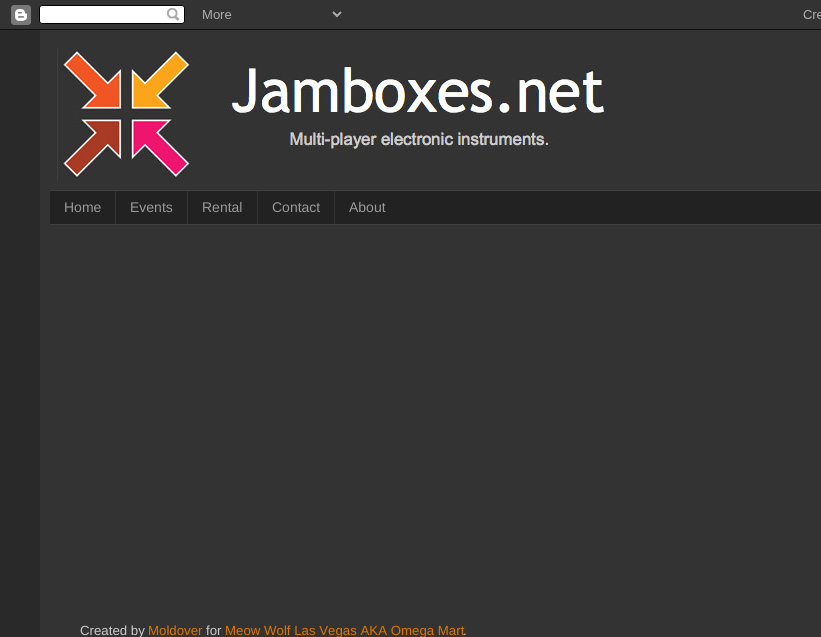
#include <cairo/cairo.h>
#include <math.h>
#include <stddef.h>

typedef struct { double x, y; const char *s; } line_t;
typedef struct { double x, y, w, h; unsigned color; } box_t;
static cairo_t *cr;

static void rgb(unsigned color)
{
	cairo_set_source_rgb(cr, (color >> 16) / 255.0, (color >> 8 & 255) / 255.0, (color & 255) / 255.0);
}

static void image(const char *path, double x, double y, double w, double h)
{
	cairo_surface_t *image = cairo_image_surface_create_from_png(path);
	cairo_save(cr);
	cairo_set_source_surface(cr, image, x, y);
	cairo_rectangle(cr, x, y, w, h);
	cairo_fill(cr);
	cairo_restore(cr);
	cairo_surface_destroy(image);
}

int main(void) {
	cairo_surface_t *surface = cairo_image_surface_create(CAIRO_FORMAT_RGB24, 821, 637);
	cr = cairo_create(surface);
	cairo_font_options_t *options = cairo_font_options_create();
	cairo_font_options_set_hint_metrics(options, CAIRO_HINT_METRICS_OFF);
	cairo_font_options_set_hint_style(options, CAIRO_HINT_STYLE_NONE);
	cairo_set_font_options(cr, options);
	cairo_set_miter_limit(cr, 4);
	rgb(0x292929);
	cairo_paint(cr);
	image("img/1.png", 0, 0, 821, 30);
	rgb(0x333333);
	cairo_rectangle(cr, 40, 30, 781, 607);
	cairo_fill(cr);
	image("img/2.png", 57, 48, 553, 136);
	{
		static const box_t items[] = {
			{50, 191, 771, 33, 0x222222},
			{50, 190, 771, 1, 0x404040},
			{50, 224, 771, 1, 0x404040},
			{115, 191, 1, 33, 0x333333},
			{187, 191, 1, 33, 0x333333},
			{257, 191, 1, 33, 0x333333},
			{334, 191, 1, 33, 0x333333},
		};
		for (size_t i = 0; i < sizeof items / sizeof *items; i++) {
			rgb(items[i].color);
			cairo_rectangle(cr, items[i].x, items[i].y, items[i].w, items[i].h);
			cairo_fill(cr);
		}
	}
	cairo_select_font_face(cr, "Liberation Sans", CAIRO_FONT_SLANT_NORMAL, CAIRO_FONT_WEIGHT_NORMAL);
	cairo_set_font_size(cr, 14);
	rgb(0x999999);
	{
		static const line_t items[] = {
			{64, 212, "Home"},
			{130, 212, "Events"},
			{202, 212, "Rental"},
			{272, 212, "Contact"},
			{349, 212, "About"},
		};
		for (size_t i = 0; i < sizeof items / sizeof *items; i++) {
			cairo_move_to(cr, items[i].x, items[i].y);
			cairo_show_text(cr, items[i].s);
		}
	}
	cairo_set_font_size(cr, 13.25);
	rgb(0xcccccc);
	cairo_move_to(cr, 80, 635);
	cairo_show_text(cr, "Created by");
	rgb(0xdd7700);
	cairo_move_to(cr, 148, 635);
	cairo_show_text(cr, "Moldover");
	rgb(0xcccccc);
	cairo_move_to(cr, 206, 635);
	cairo_show_text(cr, "for");
	rgb(0xdd7700);
	cairo_move_to(cr, 225, 635);
	cairo_show_text(cr, "Meow Wolf Las Vegas AKA Omega Mart");
	rgb(0xcccccc);
	cairo_move_to(cr, 463, 635);
	cairo_show_text(cr, ".");
	cairo_surface_write_to_png(surface, "page.png");
	cairo_font_options_destroy(options);
	cairo_destroy(cr);
	cairo_surface_destroy(surface);
	return 0;
}
